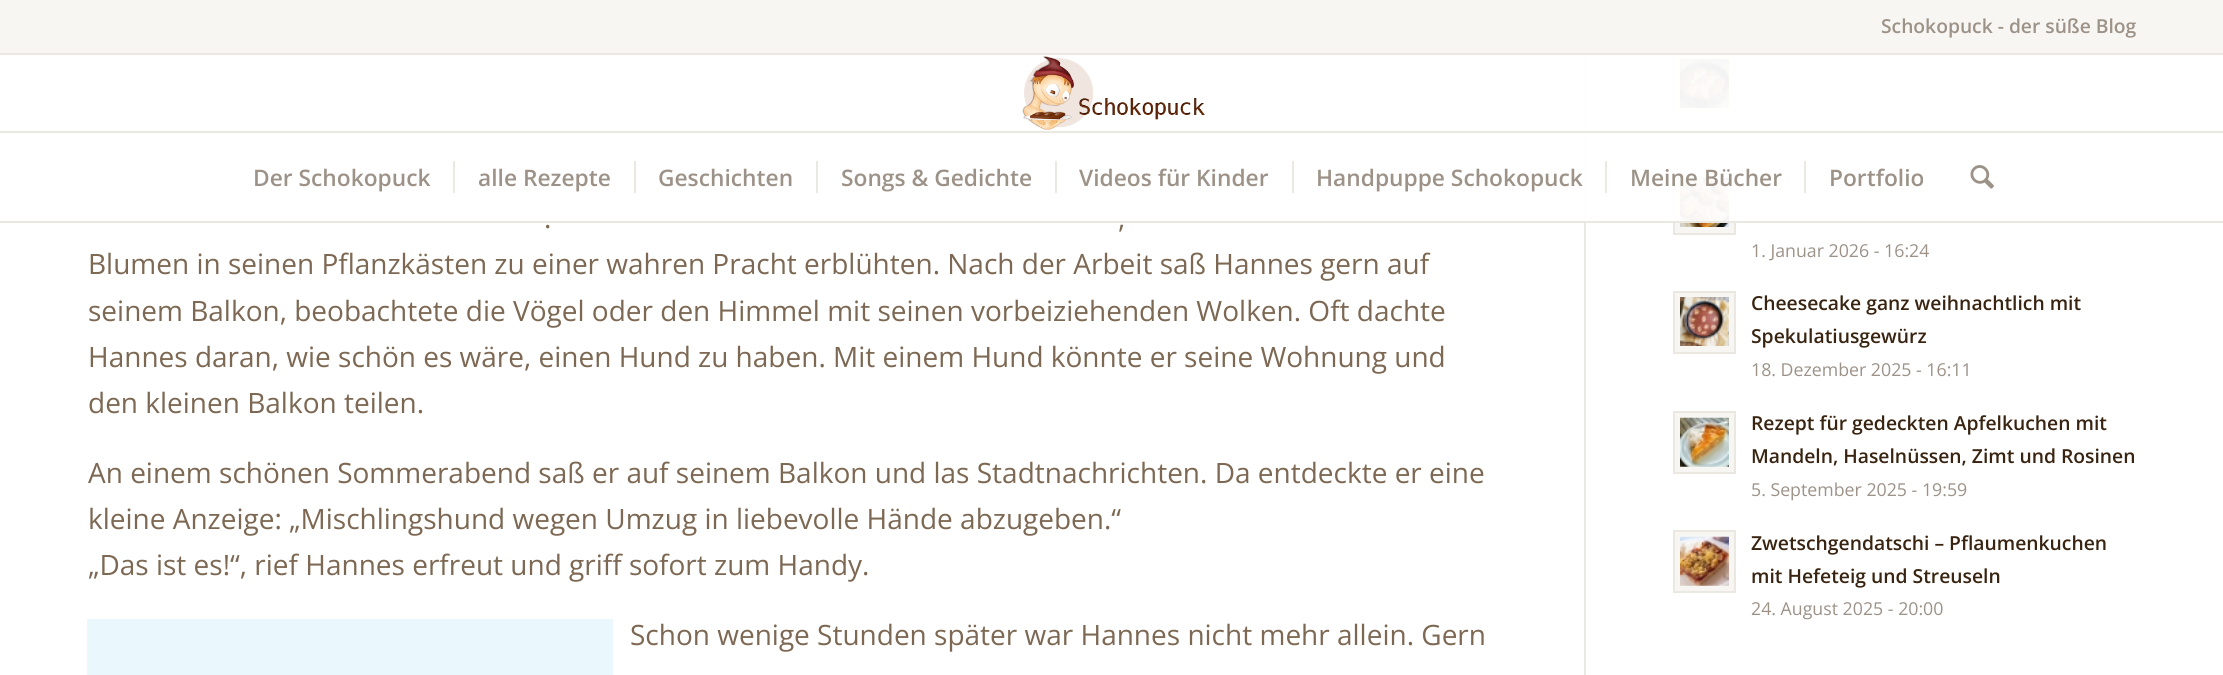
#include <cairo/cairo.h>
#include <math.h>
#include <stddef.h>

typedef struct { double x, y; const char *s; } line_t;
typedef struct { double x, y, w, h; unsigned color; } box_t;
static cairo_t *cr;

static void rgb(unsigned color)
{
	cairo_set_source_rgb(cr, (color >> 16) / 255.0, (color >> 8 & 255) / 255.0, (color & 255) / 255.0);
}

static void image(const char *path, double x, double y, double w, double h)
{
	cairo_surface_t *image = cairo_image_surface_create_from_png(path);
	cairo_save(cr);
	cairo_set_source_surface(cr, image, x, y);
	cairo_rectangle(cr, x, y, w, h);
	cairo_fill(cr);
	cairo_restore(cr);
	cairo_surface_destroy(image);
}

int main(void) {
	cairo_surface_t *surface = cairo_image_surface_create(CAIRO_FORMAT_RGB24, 2223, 675);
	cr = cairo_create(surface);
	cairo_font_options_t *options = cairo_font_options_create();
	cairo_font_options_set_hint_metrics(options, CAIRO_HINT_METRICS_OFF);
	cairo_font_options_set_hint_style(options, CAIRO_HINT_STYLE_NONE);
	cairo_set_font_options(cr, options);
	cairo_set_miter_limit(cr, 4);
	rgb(0xffffff);
	cairo_paint(cr);
	rgb(0xf8f6f2);
	cairo_rectangle(cr, 0, 0, 2223, 53);
	cairo_fill(cr);
	cairo_rectangle(cr, 1674, 54, 61, 61);
	cairo_fill_preserve(cr);
	rgb(0xebe8e2);
	cairo_stroke(cr);
	cairo_rectangle(cr, 0, 53, 2223, 2);
	cairo_fill(cr);
	cairo_rectangle(cr, 1584, 55, 2, 620);
	cairo_fill(cr);
	image("img/3.png", 1680, 59, 49, 49);
	rgb(0xf8f6f2);
	cairo_rectangle(cr, 1674, 173, 61, 61);
	cairo_fill_preserve(cr);
	rgb(0xebe8e2);
	cairo_stroke(cr);
	image("img/4.png", 1680, 178, 49, 49);
	cairo_set_source_rgba(cr, 1, 1, 1, 0.95);
	cairo_rectangle(cr, 1584, 55, 152, 166);
	cairo_fill(cr);
	rgb(0xebe8e2);
	cairo_rectangle(cr, 0, 221, 2223, 2);
	cairo_fill(cr);
	image("img/1.png", 1016, 55, 194, 75);
	{
		static const box_t items[] = {
			{0, 131, 2223, 2, 0xebe8e2},
			{453, 161, 2, 32, 0xebe8e2},
			{634, 161, 2, 32, 0xebe8e2},
			{816, 161, 2, 32, 0xebe8e2},
			{1055, 161, 2, 32, 0xebe8e2},
			{1292, 161, 2, 32, 0xebe8e2},
			{1605, 161, 2, 32, 0xebe8e2},
			{1804, 161, 2, 32, 0xebe8e2},
		};
		for (size_t i = 0; i < sizeof items / sizeof *items; i++) {
			rgb(items[i].color);
			cairo_rectangle(cr, items[i].x, items[i].y, items[i].w, items[i].h);
			cairo_fill(cr);
		}
	}
	image("img/2.png", 1970, 165, 24, 24);
	rgb(0xeaf7fd);
	cairo_rectangle(cr, 87, 619, 526, 56);
	cairo_fill(cr);
	rgb(0xf8f6f2);
	cairo_rectangle(cr, 1674, 292, 61, 61);
	cairo_fill_preserve(cr);
	rgb(0xebe8e2);
	cairo_stroke(cr);
	image("img/5.png", 1680, 297, 49, 49);
	rgb(0xf8f6f2);
	cairo_rectangle(cr, 1674, 412, 61, 61);
	cairo_fill_preserve(cr);
	rgb(0xebe8e2);
	cairo_stroke(cr);
	image("img/6.png", 1680, 417, 49, 50);
	rgb(0xf8f6f2);
	cairo_rectangle(cr, 1674, 531, 61, 61);
	cairo_fill_preserve(cr);
	rgb(0xebe8e2);
	cairo_stroke(cr);
	image("img/7.png", 1680, 536, 49, 50);
	cairo_select_font_face(cr, "Open Sans SemiBold", CAIRO_FONT_SLANT_NORMAL, CAIRO_FONT_WEIGHT_NORMAL);
	cairo_set_font_size(cr, 19.25);
	rgb(0x9c9288);
	cairo_move_to(cr, 1881, 33);
	cairo_show_text(cr, "Schokopuck - der süße Blog");
	cairo_set_font_size(cr, 22.75);
	{
		static const line_t items[] = {
			{253, 186, "Der Schokopuck"},
			{478, 186, "alle Rezepte"},
			{658, 186, "Geschichten"},
			{841, 186, "Songs & Gedichte"},
			{1079, 186, "Videos für Kinder"},
			{1316, 186, "Handpuppe Schokopuck"},
			{1630, 186, "Meine Bücher"},
			{1829, 186, "Portfolio"},
		};
		for (size_t i = 0; i < sizeof items / sizeof *items; i++) {
			cairo_move_to(cr, items[i].x, items[i].y);
			cairo_show_text(cr, items[i].s);
		}
	}
	cairo_select_font_face(cr, "Open Sans", CAIRO_FONT_SLANT_NORMAL, CAIRO_FONT_WEIGHT_NORMAL);
	cairo_set_font_size(cr, 28);
	rgb(0x7c6853);
	{
		static const line_t items[] = {
			{544, 228, "."},
			{1118, 228, ","},
			{88, 274, "Blumen in seinen Pflanzkästen zu einer wahren Pracht erblühten. Nach der Arbeit saß Hannes gern auf"},
			{88, 321, "seinem Balkon, beobachtete die Vögel oder den Himmel mit seinen vorbeiziehenden Wolken. Oft dachte"},
			{88, 367, "Hannes daran, wie schön es wäre, einen Hund zu haben. Mit einem Hund könnte er seine Wohnung und"},
			{88, 413, "den kleinen Balkon teilen."},
			{88, 483, "An einem schönen Sommerabend saß er auf seinem Balkon und las Stadtnachrichten. Da entdeckte er eine"},
			{88, 529, "kleine Anzeige: „Mischlingshund wegen Umzug in liebevolle Hände abzugeben.“"},
			{88, 575, "„Das ist es!“, rief Hannes erfreut und griff sofort zum Handy."},
			{630, 645, "Schon wenige Stunden später war Hannes nicht mehr allein. Gern"},
		};
		for (size_t i = 0; i < sizeof items / sizeof *items; i++) {
			cairo_move_to(cr, items[i].x, items[i].y);
			cairo_show_text(cr, items[i].s);
		}
	}
	cairo_set_font_size(cr, 17.75);
	rgb(0x9c9288);
	cairo_move_to(cr, 1751, 257);
	cairo_show_text(cr, "1. Januar 2026 - 16:24");
	cairo_select_font_face(cr, "Open Sans SemiBold", CAIRO_FONT_SLANT_NORMAL, CAIRO_FONT_WEIGHT_NORMAL);
	cairo_set_font_size(cr, 19.3);
	rgb(0x382410);
	cairo_move_to(cr, 1751, 310);
	cairo_show_text(cr, "Cheesecake ganz weihnachtlich mit");
	cairo_move_to(cr, 1751, 343);
	cairo_show_text(cr, "Spekulatiusgewürz");
	cairo_select_font_face(cr, "Open Sans", CAIRO_FONT_SLANT_NORMAL, CAIRO_FONT_WEIGHT_NORMAL);
	cairo_set_font_size(cr, 17.75);
	rgb(0x9c9288);
	cairo_move_to(cr, 1751, 376);
	cairo_show_text(cr, "18. Dezember 2025 - 16:11");
	cairo_select_font_face(cr, "Open Sans SemiBold", CAIRO_FONT_SLANT_NORMAL, CAIRO_FONT_WEIGHT_NORMAL);
	cairo_set_font_size(cr, 19.3);
	rgb(0x382410);
	cairo_move_to(cr, 1751, 430);
	cairo_show_text(cr, "Rezept für gedeckten Apfelkuchen mit");
	cairo_move_to(cr, 1751, 463);
	cairo_show_text(cr, "Mandeln, Haselnüssen, Zimt und Rosinen");
	cairo_select_font_face(cr, "Open Sans", CAIRO_FONT_SLANT_NORMAL, CAIRO_FONT_WEIGHT_NORMAL);
	cairo_set_font_size(cr, 17.75);
	rgb(0x9c9288);
	cairo_move_to(cr, 1751, 496);
	cairo_show_text(cr, "5. September 2025 - 19:59");
	cairo_select_font_face(cr, "Open Sans SemiBold", CAIRO_FONT_SLANT_NORMAL, CAIRO_FONT_WEIGHT_NORMAL);
	cairo_set_font_size(cr, 19.3);
	rgb(0x382410);
	cairo_move_to(cr, 1751, 550);
	cairo_show_text(cr, "Zwetschgendatschi – Pflaumenkuchen");
	cairo_move_to(cr, 1751, 583);
	cairo_show_text(cr, "mit Hefeteig und Streuseln");
	cairo_select_font_face(cr, "Open Sans", CAIRO_FONT_SLANT_NORMAL, CAIRO_FONT_WEIGHT_NORMAL);
	cairo_set_font_size(cr, 17.75);
	rgb(0x9c9288);
	cairo_move_to(cr, 1751, 615);
	cairo_show_text(cr, "24. August 2025 - 20:00");
	cairo_surface_write_to_png(surface, "page.png");
	cairo_font_options_destroy(options);
	cairo_destroy(cr);
	cairo_surface_destroy(surface);
	return 0;
}
